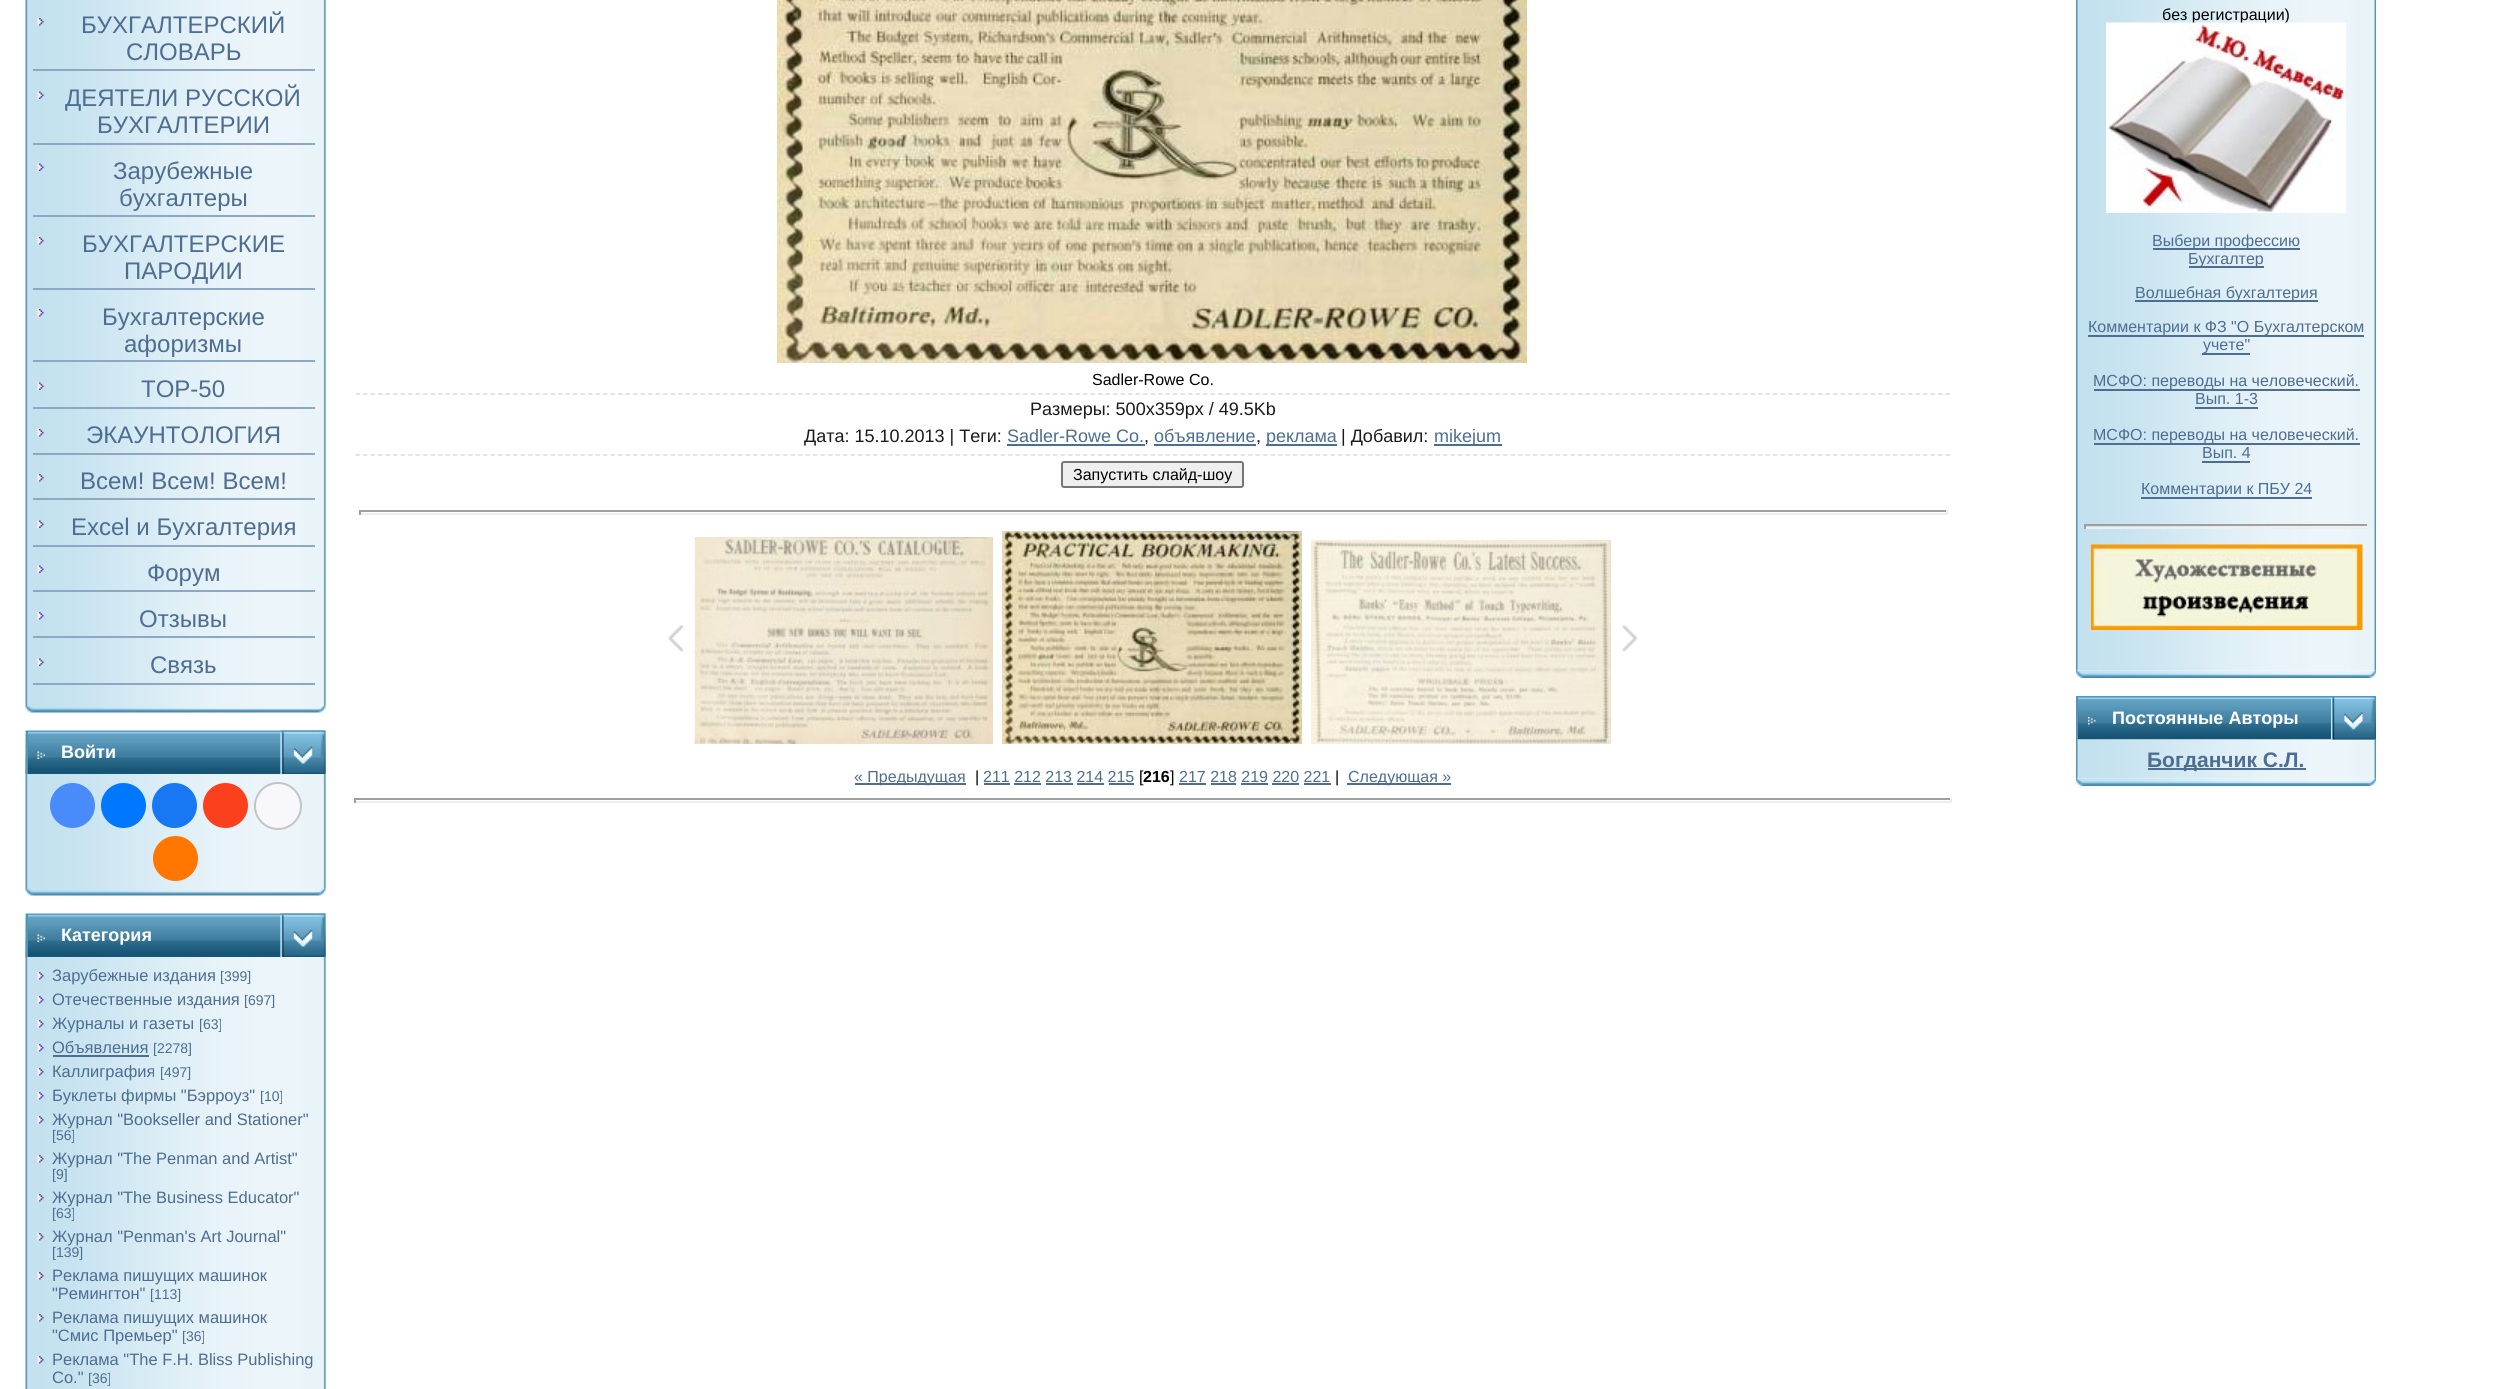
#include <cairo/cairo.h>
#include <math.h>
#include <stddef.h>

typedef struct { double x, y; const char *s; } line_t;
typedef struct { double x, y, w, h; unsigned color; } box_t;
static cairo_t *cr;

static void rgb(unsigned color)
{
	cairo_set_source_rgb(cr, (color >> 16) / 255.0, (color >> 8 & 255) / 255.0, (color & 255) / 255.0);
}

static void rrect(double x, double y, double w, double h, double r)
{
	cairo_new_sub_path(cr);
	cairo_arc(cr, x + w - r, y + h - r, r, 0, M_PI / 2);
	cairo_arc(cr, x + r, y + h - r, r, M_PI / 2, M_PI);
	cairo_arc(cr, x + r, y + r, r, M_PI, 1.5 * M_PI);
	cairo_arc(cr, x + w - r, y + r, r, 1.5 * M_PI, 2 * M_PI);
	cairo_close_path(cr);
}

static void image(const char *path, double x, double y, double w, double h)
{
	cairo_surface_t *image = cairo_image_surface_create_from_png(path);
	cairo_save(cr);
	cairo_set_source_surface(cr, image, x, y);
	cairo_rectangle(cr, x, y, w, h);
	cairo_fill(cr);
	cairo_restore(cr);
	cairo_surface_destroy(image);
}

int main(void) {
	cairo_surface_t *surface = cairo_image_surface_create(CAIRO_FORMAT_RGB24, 2509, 1389);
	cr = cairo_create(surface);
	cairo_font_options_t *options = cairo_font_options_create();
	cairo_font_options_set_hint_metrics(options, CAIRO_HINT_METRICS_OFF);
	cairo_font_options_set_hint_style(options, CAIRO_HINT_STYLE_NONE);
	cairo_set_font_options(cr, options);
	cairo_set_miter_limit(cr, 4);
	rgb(0xffffff);
	cairo_paint(cr);
	rgb(0xc3e1ef);
	cairo_rectangle(cr, 325, 0, 1, 705);
	cairo_fill(cr);
	image("img/1.png", 25, 0, 301, 705);
	image("img/2.png", 37, 18, 7, 8);
	rgb(0x8ea8c4);
	cairo_rectangle(cr, 33, 69, 282, 2);
	cairo_fill(cr);
	image("img/3.png", 37, 91, 7, 8);
	cairo_rectangle(cr, 33, 143, 282, 2);
	cairo_fill(cr);
	image("img/3.png", 37, 163, 7, 8);
	cairo_rectangle(cr, 33, 215, 282, 2);
	cairo_fill(cr);
	image("img/2.png", 37, 237, 7, 8);
	cairo_rectangle(cr, 33, 288, 282, 2);
	cairo_fill(cr);
	image("img/2.png", 37, 309, 7, 8);
	cairo_rectangle(cr, 33, 360, 282, 2);
	cairo_fill(cr);
	image("img/3.png", 37, 382, 7, 8);
	cairo_rectangle(cr, 33, 407, 282, 2);
	cairo_fill(cr);
	image("img/2.png", 37, 429, 7, 8);
	cairo_rectangle(cr, 33, 453, 282, 2);
	cairo_fill(cr);
	image("img/2.png", 37, 474, 7, 8);
	cairo_rectangle(cr, 33, 498, 282, 2);
	cairo_fill(cr);
	image("img/3.png", 37, 520, 7, 8);
	cairo_rectangle(cr, 33, 545, 282, 2);
	cairo_fill(cr);
	image("img/3.png", 37, 565, 7, 8);
	cairo_rectangle(cr, 33, 590, 282, 2);
	cairo_fill(cr);
	image("img/2.png", 37, 612, 7, 8);
	cairo_rectangle(cr, 33, 636, 282, 2);
	cairo_fill(cr);
	image("img/3.png", 37, 658, 7, 8);
	cairo_rectangle(cr, 33, 683, 282, 2);
	cairo_fill(cr);
	image("img/4.png", 25, 705, 301, 8);
	image("img/5.png", 25, 730, 256, 44);
	rgb(0x5694b5);
	cairo_rectangle(cr, 26, 731, 2, 43);
	cairo_fill(cr);
	image("img/6.png", 37, 751, 8, 8);
	image("img/7.png", 280, 730, 46, 44);
	image("img/8.png", 280, 730, 46, 44);
	rgb(0xc3e1ef);
	cairo_rectangle(cr, 325, 774, 1, 114);
	cairo_fill(cr);
	image("img/9.png", 25, 774, 301, 114);
	rgb(0x498bfa);
	cairo_arc(cr, 72.5, 805.5, 22.5, 0, 2 * M_PI);
	cairo_fill(cr);
	rgb(0x0077ff);
	cairo_arc(cr, 123.5, 805.5, 22.5, 0, 2 * M_PI);
	cairo_fill(cr);
	rgb(0x1877f2);
	cairo_arc(cr, 174.5, 805.5, 22.5, 0, 2 * M_PI);
	cairo_fill(cr);
	rgb(0xfc3f1d);
	cairo_arc(cr, 225.5, 805.5, 22.5, 0, 2 * M_PI);
	cairo_fill(cr);
	rgb(0xf8f8fc);
	cairo_arc(cr, 278, 806, 23, 0, 2 * M_PI);
	cairo_fill_preserve(cr);
	rgb(0xc4c4c4);
	cairo_stroke(cr);
	rgb(0xff7700);
	cairo_arc(cr, 175.5, 858.5, 22.5, 0, 2 * M_PI);
	cairo_fill(cr);
	image("img/4.png", 25, 888, 301, 8);
	image("img/5.png", 25, 913, 256, 44);
	rgb(0x5694b5);
	cairo_rectangle(cr, 26, 914, 2, 43);
	cairo_fill(cr);
	image("img/6.png", 37, 934, 8, 8);
	image("img/7.png", 280, 913, 46, 44);
	image("img/8.png", 280, 913, 46, 44);
	rgb(0xc3e1ef);
	cairo_rectangle(cr, 325, 957, 1, 432);
	cairo_fill(cr);
	image("img/10.png", 25, 957, 301, 432);
	image("img/2.png", 37, 972, 7, 8);
	image("img/2.png", 37, 996, 7, 8);
	image("img/2.png", 37, 1020, 7, 8);
	image("img/2.png", 37, 1044, 7, 8);
	rgb(0x4d6d91);
	cairo_rectangle(cr, 53, 1055, 96, 2);
	cairo_fill(cr);
	image("img/2.png", 37, 1068, 7, 8);
	image("img/2.png", 37, 1092, 7, 8);
	image("img/2.png", 37, 1116, 7, 8);
	image("img/2.png", 37, 1155, 7, 8);
	image("img/2.png", 37, 1194, 7, 8);
	image("img/2.png", 37, 1233, 7, 8);
	image("img/2.png", 37, 1272, 7, 8);
	image("img/2.png", 37, 1314, 7, 8);
	image("img/2.png", 37, 1356, 7, 8);
	image("img/11.png", 777, 0, 750, 363);
	cairo_new_path(cr);
	cairo_move_to(cr, 355.5, 394);
	cairo_line_to(cr, 1950, 394);
	rgb(0xdddddd);
	cairo_set_line_width(cr, 1.5);
	cairo_set_dash(cr, (double[]){4.5, 3}, 2, 0);
	cairo_stroke(cr);
	cairo_new_path(cr);
	cairo_move_to(cr, 355.5, 455);
	cairo_line_to(cr, 1950, 455);
	cairo_stroke(cr);
	{
		static const box_t items[] = {
			{1007, 444, 138, 2, 0x4d6d91},
			{1154, 444, 102, 2, 0x4d6d91},
			{1266, 444, 71, 2, 0x4d6d91},
			{1434, 444, 68, 2, 0x4d6d91},
		};
		for (size_t i = 0; i < sizeof items / sizeof *items; i++) {
			rgb(items[i].color);
			cairo_rectangle(cr, items[i].x, items[i].y, items[i].w, items[i].h);
			cairo_fill(cr);
		}
	}
	rgb(0xefefef);
	rrect(1062, 462, 181, 25, 2);
	cairo_fill_preserve(cr);
	rgb(0x767676);
	cairo_set_line_width(cr, 2);
	cairo_set_dash(cr, NULL, 0, 0);
	cairo_stroke(cr);
	{
		static const box_t items[] = {
			{359, 510, 1588, 2, 0x9f9f9f},
			{1946, 510, 2, 5, 0xeeeeee},
			{359, 513, 1588, 2, 0xeeeeee},
			{359, 510, 2, 5, 0x9f9f9f},
		};
		for (size_t i = 0; i < sizeof items / sizeof *items; i++) {
			rgb(items[i].color);
			cairo_rectangle(cr, items[i].x, items[i].y, items[i].w, items[i].h);
			cairo_fill(cr);
		}
	}
	image("img/12.png", 667, 625, 17, 27);
	image("img/13.png", 694, 537, 299, 207);
	image("img/14.png", 1002, 531, 300, 213);
	image("img/15.png", 1311, 540, 300, 204);
	image("img/16.png", 1621, 625, 17, 27);
	{
		static const box_t items[] = {
			{855, 783, 111, 2, 0x4d6d91},
			{984, 783, 26, 2, 0x4d6d91},
			{1179, 783, 27, 2, 0x4d6d91},
			{1347, 783, 104, 2, 0x4d6d91},
			{1014, 783, 27, 2, 0x4d6d91},
			{1046, 783, 27, 2, 0x4d6d91},
			{1077, 783, 27, 2, 0x4d6d91},
			{1109, 783, 25, 2, 0x4d6d91},
			{1211, 783, 25, 2, 0x4d6d91},
			{1241, 783, 27, 2, 0x4d6d91},
			{1272, 783, 27, 2, 0x4d6d91},
			{1304, 783, 27, 2, 0x4d6d91},
			{354, 798, 1598, 2, 0x9f9f9f},
			{1950, 798, 2, 5, 0xeeeeee},
			{354, 801, 1598, 2, 0xeeeeee},
			{354, 798, 2, 5, 0x9f9f9f},
		};
		for (size_t i = 0; i < sizeof items / sizeof *items; i++) {
			rgb(items[i].color);
			cairo_rectangle(cr, items[i].x, items[i].y, items[i].w, items[i].h);
			cairo_fill(cr);
		}
	}
	image("img/17.png", 2076, 0, 300, 671);
	{
		static const box_t items[] = {
			{2153, 248, 147, 2, 0x4d6d91},
			{2189, 266, 75, 2, 0x4d6d91},
			{2135, 300, 183, 2, 0x4d6d91},
			{2088, 335, 276, 2, 0x4d6d91},
			{2202, 353, 48, 2, 0x4d6d91},
			{2094, 389, 266, 2, 0x4d6d91},
			{2195, 407, 63, 2, 0x4d6d91},
			{2094, 443, 266, 2, 0x4d6d91},
			{2202, 461, 48, 2, 0x4d6d91},
			{2141, 497, 171, 2, 0x4d6d91},
			{2084, 524, 285, 2, 0x9f9f9f},
			{2367, 524, 2, 5, 0xeeeeee},
			{2084, 527, 285, 2, 0xeeeeee},
			{2084, 524, 2, 5, 0x9f9f9f},
		};
		for (size_t i = 0; i < sizeof items / sizeof *items; i++) {
			rgb(items[i].color);
			cairo_rectangle(cr, items[i].x, items[i].y, items[i].w, items[i].h);
			cairo_fill(cr);
		}
	}
	image("img/19.png", 2091, 544, 272, 86);
	image("img/20.png", 2076, 670, 300, 8);
	image("img/21.png", 2078, 696, 253, 44);
	rgb(0x5694b5);
	cairo_rectangle(cr, 2076, 696, 2, 44);
	cairo_fill(cr);
	image("img/22.png", 2088, 717, 8, 8);
	image("img/23.png", 2331, 696, 45, 44);
	image("img/25.png", 2076, 739, 300, 40);
	image("img/24.png", 2331, 697, 45, 43);
	rgb(0x4d6d91);
	cairo_rectangle(cr, 2148, 768, 158, 2);
	cairo_fill(cr);
	image("img/20.png", 2076, 778, 300, 8);
	cairo_select_font_face(cr, "Liberation Sans", CAIRO_FONT_SLANT_NORMAL, CAIRO_FONT_WEIGHT_NORMAL);
	cairo_set_font_size(cr, 24);
	{
		static const line_t items[] = {
			{81, 33, "БУХГАЛТЕРСКИЙ"},
			{126, 60, "СЛОВАРЬ"},
			{65, 106, "ДЕЯТЕЛИ РУССКОЙ"},
			{97, 133, "БУХГАЛТЕРИИ"},
			{113, 179, "Зарубежные"},
			{119, 206, "бухгалтеры"},
			{82, 252, "БУХГАЛТЕРСКИЕ"},
			{124, 279, "ПАРОДИИ"},
			{102, 325, "Бухгалтерские"},
			{124, 352, "афоризмы"},
			{141, 397, "TOP-50"},
			{86, 443, "ЭКАУНТОЛОГИЯ"},
			{80, 489, "Всем! Всем! Всем!"},
			{71, 535, "Excel и Бухгалтерия"},
			{147, 581, "Форум"},
			{139, 627, "Отзывы"},
			{150, 673, "Связь"},
		};
		for (size_t i = 0; i < sizeof items / sizeof *items; i++) {
			cairo_move_to(cr, items[i].x, items[i].y);
			cairo_show_text(cr, items[i].s);
		}
	}
	cairo_select_font_face(cr, "Liberation Sans", CAIRO_FONT_SLANT_NORMAL, CAIRO_FONT_WEIGHT_BOLD);
	cairo_set_font_size(cr, 18);
	rgb(0xffffff);
	cairo_move_to(cr, 61, 758);
	cairo_show_text(cr, "Войти");
	cairo_move_to(cr, 61, 941);
	cairo_show_text(cr, "Категория");
	cairo_select_font_face(cr, "Liberation Sans", CAIRO_FONT_SLANT_NORMAL, CAIRO_FONT_WEIGHT_NORMAL);
	cairo_set_font_size(cr, 16.5);
	rgb(0x4d6d91);
	cairo_move_to(cr, 52, 981);
	cairo_show_text(cr, "Зарубежные издания");
	cairo_set_font_size(cr, 14);
	cairo_move_to(cr, 220, 981);
	cairo_show_text(cr, "[399]");
	cairo_set_font_size(cr, 16.5);
	cairo_move_to(cr, 52, 1005);
	cairo_show_text(cr, "Отечественные издания");
	cairo_set_font_size(cr, 14);
	cairo_move_to(cr, 244, 1005);
	cairo_show_text(cr, "[697]");
	cairo_set_font_size(cr, 16.5);
	cairo_move_to(cr, 52, 1029);
	cairo_show_text(cr, "Журналы и газеты");
	cairo_set_font_size(cr, 14);
	cairo_move_to(cr, 199, 1029);
	cairo_show_text(cr, "[63]");
	cairo_set_font_size(cr, 16.5);
	cairo_move_to(cr, 52, 1053);
	cairo_show_text(cr, "Объявления");
	cairo_set_font_size(cr, 14);
	cairo_move_to(cr, 153, 1053);
	cairo_show_text(cr, "[2278]");
	cairo_set_font_size(cr, 16.5);
	cairo_move_to(cr, 52, 1077);
	cairo_show_text(cr, "Каллиграфия");
	cairo_set_font_size(cr, 14);
	cairo_move_to(cr, 160, 1077);
	cairo_show_text(cr, "[497]");
	cairo_set_font_size(cr, 16.5);
	cairo_move_to(cr, 52, 1101);
	cairo_show_text(cr, "Буклеты фирмы \"Бэрроуз\"");
	cairo_set_font_size(cr, 14);
	cairo_move_to(cr, 260, 1101);
	cairo_show_text(cr, "[10]");
	cairo_set_font_size(cr, 16.5);
	cairo_move_to(cr, 52, 1125);
	cairo_show_text(cr, "Журнал \"Bookseller and Stationer\"");
	cairo_set_font_size(cr, 14);
	cairo_move_to(cr, 52, 1140);
	cairo_show_text(cr, "[56]");
	cairo_set_font_size(cr, 16.5);
	cairo_move_to(cr, 52, 1164);
	cairo_show_text(cr, "Журнал \"The Penman and Artist\"");
	cairo_set_font_size(cr, 14);
	cairo_move_to(cr, 52, 1179);
	cairo_show_text(cr, "[9]");
	cairo_set_font_size(cr, 16.5);
	cairo_move_to(cr, 52, 1203);
	cairo_show_text(cr, "Журнал \"The Business Educator\"");
	cairo_set_font_size(cr, 14);
	cairo_move_to(cr, 52, 1218);
	cairo_show_text(cr, "[63]");
	cairo_set_font_size(cr, 16.5);
	cairo_move_to(cr, 52, 1242);
	cairo_show_text(cr, "Журнал \"Penman's Art Journal\"");
	cairo_set_font_size(cr, 14);
	cairo_move_to(cr, 52, 1257);
	cairo_show_text(cr, "[139]");
	cairo_set_font_size(cr, 16.5);
	cairo_move_to(cr, 52, 1281);
	cairo_show_text(cr, "Реклама пишущих машинок");
	cairo_move_to(cr, 52, 1299);
	cairo_show_text(cr, "\"Ремингтон\"");
	cairo_set_font_size(cr, 14);
	cairo_move_to(cr, 150, 1299);
	cairo_show_text(cr, "[113]");
	cairo_set_font_size(cr, 16.5);
	cairo_move_to(cr, 52, 1323);
	cairo_show_text(cr, "Реклама пишущих машинок");
	cairo_move_to(cr, 52, 1341);
	cairo_show_text(cr, "\"Смис Премьер\"");
	cairo_set_font_size(cr, 14);
	cairo_move_to(cr, 182, 1341);
	cairo_show_text(cr, "[36]");
	cairo_set_font_size(cr, 16.5);
	cairo_move_to(cr, 52, 1365);
	cairo_show_text(cr, "Реклама \"The F.H. Bliss Publishing");
	cairo_move_to(cr, 52, 1383);
	cairo_show_text(cr, "Co.\"");
	cairo_set_font_size(cr, 14);
	cairo_move_to(cr, 88, 1383);
	cairo_show_text(cr, "[36]");
	cairo_set_font_size(cr, 16);
	rgb(0x000000);
	cairo_move_to(cr, 1092, 385);
	cairo_show_text(cr, "Sadler-Rowe Co.");
	cairo_set_font_size(cr, 18);
	rgb(0x1a1a1a);
	cairo_move_to(cr, 1030, 415);
	cairo_show_text(cr, "Размеры: 500x359px / 49.5Kb");
	cairo_move_to(cr, 804, 442);
	cairo_show_text(cr, "Дата: 15.10.2013 | Теги:");
	rgb(0x4d6d91);
	cairo_move_to(cr, 1007, 442);
	cairo_show_text(cr, "Sadler-Rowe Co.");
	rgb(0x1a1a1a);
	cairo_move_to(cr, 1144, 442);
	cairo_show_text(cr, ",");
	rgb(0x4d6d91);
	cairo_move_to(cr, 1154, 442);
	cairo_show_text(cr, "объявление");
	rgb(0x1a1a1a);
	cairo_move_to(cr, 1256, 442);
	cairo_show_text(cr, ",");
	rgb(0x4d6d91);
	cairo_move_to(cr, 1266, 442);
	cairo_show_text(cr, "реклама");
	rgb(0x1a1a1a);
	cairo_move_to(cr, 1341, 442);
	cairo_show_text(cr, "| Добавил:");
	rgb(0x4d6d91);
	cairo_move_to(cr, 1434, 442);
	cairo_show_text(cr, "mikejum");
	cairo_set_font_size(cr, 16);
	rgb(0x000000);
	cairo_move_to(cr, 1073, 480);
	cairo_show_text(cr, "Запустить слайд-шоу");
	rgb(0x4d6d91);
	cairo_move_to(cr, 854, 782);
	cairo_show_text(cr, "« Предыдущая");
	rgb(0x000000);
	cairo_move_to(cr, 975, 782);
	cairo_show_text(cr, "|");
	rgb(0x4d6d91);
	cairo_move_to(cr, 983, 782);
	cairo_show_text(cr, "211 212 213 214 215");
	rgb(0x000000);
	cairo_move_to(cr, 1139, 782);
	cairo_show_text(cr, "[");
	cairo_select_font_face(cr, "Liberation Sans", CAIRO_FONT_SLANT_NORMAL, CAIRO_FONT_WEIGHT_BOLD);
	cairo_move_to(cr, 1143, 782);
	cairo_show_text(cr, "216");
	cairo_select_font_face(cr, "Liberation Sans", CAIRO_FONT_SLANT_NORMAL, CAIRO_FONT_WEIGHT_NORMAL);
	cairo_move_to(cr, 1170, 782);
	cairo_show_text(cr, "]");
	rgb(0x4d6d91);
	cairo_move_to(cr, 1179, 782);
	cairo_show_text(cr, "217 218 219 220 221");
	rgb(0x000000);
	cairo_move_to(cr, 1335, 782);
	cairo_show_text(cr, "|");
	rgb(0x4d6d91);
	cairo_move_to(cr, 1348, 782);
	cairo_show_text(cr, "Следующая »");
	rgb(0x000000);
	cairo_move_to(cr, 2162, 20);
	cairo_show_text(cr, "без регистрации)");
	image("img/18.png", 2106, 22, 240, 191);
	rgb(0x4d6d91);
	{
		static const line_t items[] = {
			{2152, 246, "Выбери профессию"},
			{2188, 264, "Бухгалтер"},
			{2135, 298, "Волшебная бухгалтерия"},
			{2088, 332, "Комментарии к ФЗ \"О Бухгалтерском"},
			{2203, 350, "учете\""},
			{2093, 386, "МСФО: переводы на человеческий."},
			{2195, 404, "Вып. 1-3"},
			{2093, 440, "МСФО: переводы на человеческий."},
			{2202, 458, "Вып. 4"},
			{2141, 494, "Комментарии к ПБУ 24"},
		};
		for (size_t i = 0; i < sizeof items / sizeof *items; i++) {
			cairo_move_to(cr, items[i].x, items[i].y);
			cairo_show_text(cr, items[i].s);
		}
	}
	cairo_select_font_face(cr, "Liberation Sans", CAIRO_FONT_SLANT_NORMAL, CAIRO_FONT_WEIGHT_BOLD);
	cairo_set_font_size(cr, 18);
	rgb(0xffffff);
	cairo_move_to(cr, 2112, 724);
	cairo_show_text(cr, "Постоянные Авторы");
	cairo_set_font_size(cr, 21);
	rgb(0x4d6d91);
	cairo_move_to(cr, 2147, 767);
	cairo_show_text(cr, "Богданчик С.Л.");
	cairo_surface_write_to_png(surface, "page.png");
	cairo_font_options_destroy(options);
	cairo_destroy(cr);
	cairo_surface_destroy(surface);
	return 0;
}
